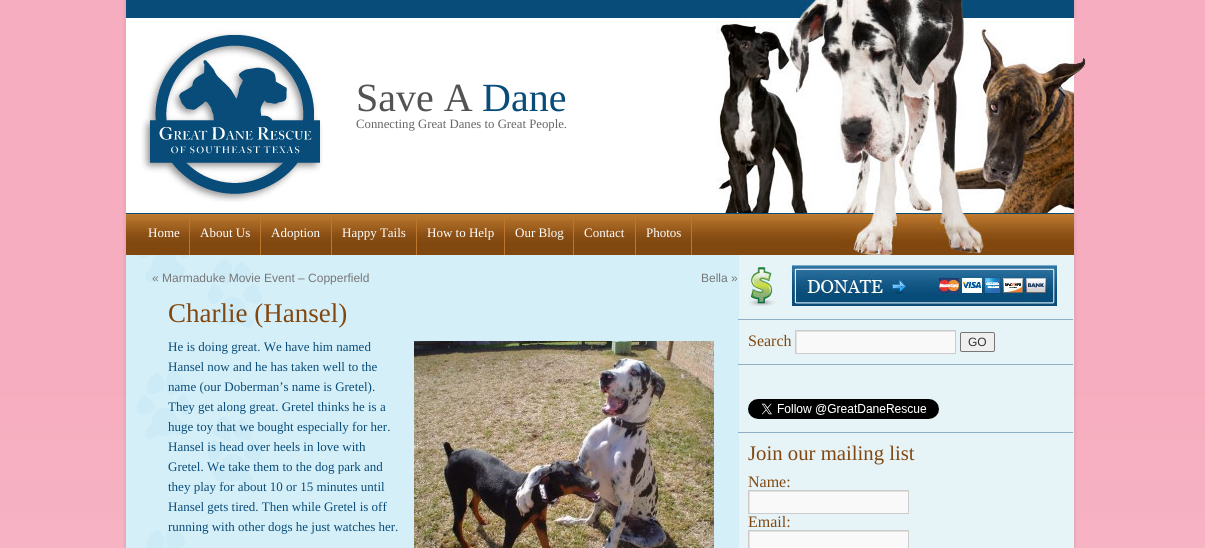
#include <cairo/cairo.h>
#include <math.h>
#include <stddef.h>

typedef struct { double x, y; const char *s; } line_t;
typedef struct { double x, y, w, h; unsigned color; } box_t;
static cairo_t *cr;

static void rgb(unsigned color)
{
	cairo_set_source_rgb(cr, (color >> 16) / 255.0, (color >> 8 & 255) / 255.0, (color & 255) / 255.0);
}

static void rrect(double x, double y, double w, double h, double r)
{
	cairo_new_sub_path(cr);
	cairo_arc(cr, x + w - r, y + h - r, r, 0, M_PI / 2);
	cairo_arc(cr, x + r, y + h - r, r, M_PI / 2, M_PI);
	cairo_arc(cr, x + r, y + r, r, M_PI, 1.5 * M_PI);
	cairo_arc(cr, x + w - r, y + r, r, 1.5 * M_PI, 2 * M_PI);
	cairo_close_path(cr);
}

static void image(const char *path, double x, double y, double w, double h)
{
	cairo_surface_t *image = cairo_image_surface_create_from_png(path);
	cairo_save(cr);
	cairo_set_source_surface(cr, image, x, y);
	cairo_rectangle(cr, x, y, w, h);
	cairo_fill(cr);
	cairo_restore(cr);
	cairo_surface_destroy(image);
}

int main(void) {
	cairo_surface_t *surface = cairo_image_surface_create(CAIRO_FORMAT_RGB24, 1205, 548);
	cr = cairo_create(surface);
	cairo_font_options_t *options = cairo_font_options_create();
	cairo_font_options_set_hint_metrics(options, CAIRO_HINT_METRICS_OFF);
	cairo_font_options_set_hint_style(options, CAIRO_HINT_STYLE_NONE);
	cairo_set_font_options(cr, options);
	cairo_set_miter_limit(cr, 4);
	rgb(0xffffff);
	cairo_paint(cr);
	image("img/1.png", 0, 0, 1205, 548);
	image("img/2.png", 123, 0, 954, 548);
	rgb(0x084c79);
	cairo_rectangle(cr, 126, 0, 948, 18);
	cairo_fill(cr);
	image("img/3.png", 796, 0, 168, 18);
	image("img/4.png", 141, 29, 182, 173);
	image("img/5.png", 716, 18, 370, 195);
	image("img/6.png", 126, 214, 712, 41);
	{
		static const box_t items[] = {
			{126, 213, 712, 1, 0x084c79},
			{189, 214, 1, 41, 0xbc762e},
			{260, 214, 1, 41, 0xbc762e},
			{331, 214, 1, 41, 0xbc762e},
			{416, 214, 1, 41, 0xbc762e},
			{504, 214, 1, 41, 0xbc762e},
			{573, 214, 1, 41, 0xbc762e},
			{635, 214, 1, 41, 0xbc762e},
			{691, 214, 1, 41, 0xbc762e},
		};
		for (size_t i = 0; i < sizeof items / sizeof *items; i++) {
			rgb(items[i].color);
			cairo_rectangle(cr, items[i].x, items[i].y, items[i].w, items[i].h);
			cairo_fill(cr);
		}
	}
	image("img/7.png", 838, 213, 236, 42);
	rgb(0xd5eff8);
	cairo_rectangle(cr, 126, 255, 11, 293);
	cairo_fill(cr);
	image("img/8.png", 137, 255, 937, 293);
	image("img/9.png", 414, 341, 300, 207);
	rgb(0x8db0c5);
	cairo_rectangle(cr, 738, 319, 335, 1);
	cairo_fill(cr);
	image("img/10.png", 748, 265, 309, 41);
	cairo_rectangle(cr, 738, 364, 335, 1);
	cairo_fill(cr);
	rgb(0xf9f9f9);
	cairo_rectangle(cr, 797, 332, 158, 21);
	cairo_fill(cr);
	cairo_save(cr);
	cairo_rectangle(cr, 796, 331, 159, 22);
	cairo_clip(cr);
	rgb(0xe0e0e0);
	cairo_set_fill_rule(cr, CAIRO_FILL_RULE_EVEN_ODD);
	cairo_new_path(cr);
	cairo_move_to(cr, 697, 232);
	cairo_line_to(cr, 1054, 232);
	cairo_line_to(cr, 1054, 452);
	cairo_line_to(cr, 697, 452);
	cairo_close_path(cr);
	cairo_move_to(cr, 797, 332);
	cairo_line_to(cr, 956, 332);
	cairo_line_to(cr, 956, 354);
	cairo_line_to(cr, 797, 354);
	cairo_close_path(cr);
	cairo_fill(cr);
	cairo_restore(cr);
	cairo_rectangle(cr, 795.5, 330.5, 160, 23);
	rgb(0xcccccc);
	cairo_set_line_width(cr, 1);
	cairo_stroke(cr);
	rgb(0xefefef);
	rrect(960.5, 332.5, 34, 19, 1.5);
	cairo_fill_preserve(cr);
	rgb(0x767676);
	cairo_stroke(cr);
	rgb(0x8db0c5);
	cairo_rectangle(cr, 738, 432, 335, 1);
	cairo_fill(cr);
	image("img/11.png", 748, 399, 191, 20);
	rgb(0xf9f9f9);
	cairo_rectangle(cr, 750, 492, 158, 21);
	cairo_fill(cr);
	cairo_save(cr);
	cairo_rectangle(cr, 749, 491, 159, 22);
	cairo_clip(cr);
	rgb(0xe0e0e0);
	cairo_set_fill_rule(cr, CAIRO_FILL_RULE_EVEN_ODD);
	cairo_new_path(cr);
	cairo_move_to(cr, 650, 392);
	cairo_line_to(cr, 1007, 392);
	cairo_line_to(cr, 1007, 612);
	cairo_line_to(cr, 650, 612);
	cairo_close_path(cr);
	cairo_move_to(cr, 750, 492);
	cairo_line_to(cr, 909, 492);
	cairo_line_to(cr, 909, 514);
	cairo_line_to(cr, 750, 514);
	cairo_close_path(cr);
	cairo_fill(cr);
	cairo_restore(cr);
	cairo_rectangle(cr, 748.5, 490.5, 160, 23);
	rgb(0xcccccc);
	cairo_stroke(cr);
	rgb(0xf9f9f9);
	cairo_rectangle(cr, 750, 532, 158, 16);
	cairo_fill(cr);
	cairo_save(cr);
	cairo_rectangle(cr, 749, 531, 159, 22);
	cairo_clip(cr);
	rgb(0xe0e0e0);
	cairo_set_fill_rule(cr, CAIRO_FILL_RULE_EVEN_ODD);
	cairo_new_path(cr);
	cairo_move_to(cr, 650, 432);
	cairo_line_to(cr, 1007, 432);
	cairo_line_to(cr, 1007, 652);
	cairo_line_to(cr, 650, 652);
	cairo_close_path(cr);
	cairo_move_to(cr, 750, 532);
	cairo_line_to(cr, 909, 532);
	cairo_line_to(cr, 909, 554);
	cairo_line_to(cr, 750, 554);
	cairo_close_path(cr);
	cairo_fill(cr);
	cairo_restore(cr);
	cairo_rectangle(cr, 748.5, 530.5, 160, 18);
	rgb(0xcccccc);
	cairo_stroke(cr);
	cairo_select_font_face(cr, "Liberation Serif", CAIRO_FONT_SLANT_NORMAL, CAIRO_FONT_WEIGHT_NORMAL);
	cairo_set_font_size(cr, 40);
	rgb(0x535353);
	cairo_move_to(cr, 356, 111);
	cairo_show_text(cr, "Save A");
	rgb(0x084c79);
	cairo_move_to(cr, 482, 111);
	cairo_show_text(cr, "Dane");
	cairo_set_font_size(cr, 12.75);
	rgb(0x666666);
	cairo_move_to(cr, 356, 128);
	cairo_show_text(cr, "Connecting Great Danes to Great People.");
	cairo_set_font_size(cr, 13);
	rgb(0xffffff);
	{
		static const line_t items[] = {
			{148, 237, "Home"},
			{200, 237, "About Us"},
			{271, 237, "Adoption"},
			{342, 237, "Happy Tails"},
			{427, 237, "How to Help"},
			{515, 237, "Our Blog"},
			{584, 237, "Contact"},
			{646, 237, "Photos"},
		};
		for (size_t i = 0; i < sizeof items / sizeof *items; i++) {
			cairo_move_to(cr, items[i].x, items[i].y);
			cairo_show_text(cr, items[i].s);
		}
	}
	cairo_select_font_face(cr, "Liberation Sans", CAIRO_FONT_SLANT_NORMAL, CAIRO_FONT_WEIGHT_NORMAL);
	cairo_set_font_size(cr, 12);
	rgb(0x777777);
	cairo_move_to(cr, 152, 282);
	cairo_show_text(cr, "« Marmaduke Movie Event – Copperfield");
	cairo_move_to(cr, 701, 282);
	cairo_show_text(cr, "Bella »");
	cairo_select_font_face(cr, "Liberation Serif", CAIRO_FONT_SLANT_NORMAL, CAIRO_FONT_WEIGHT_NORMAL);
	cairo_set_font_size(cr, 27);
	rgb(0x81470f);
	cairo_move_to(cr, 168, 322);
	cairo_show_text(cr, "Charlie (Hansel)");
	cairo_set_font_size(cr, 13);
	rgb(0x084c79);
	{
		static const line_t items[] = {
			{168, 351, "He is doing great. We have him named"},
			{168, 371, "Hansel now and he has taken well to the"},
			{168, 391, "name (our Doberman’s name is Gretel)."},
			{168, 411, "They get along great. Gretel thinks he is a"},
			{168, 431, "huge toy that we bought especially for her."},
			{168, 451, "Hansel is head over heels in love with"},
			{168, 471, "Gretel. We take them to the dog park and"},
			{168, 491, "they play for about 10 or 15 minutes until"},
			{168, 511, "Hansel gets tired. Then while Gretel is off"},
			{168, 531, "running with other dogs he just watches her."},
		};
		for (size_t i = 0; i < sizeof items / sizeof *items; i++) {
			cairo_move_to(cr, items[i].x, items[i].y);
			cairo_show_text(cr, items[i].s);
		}
	}
	cairo_set_font_size(cr, 16);
	rgb(0x81470f);
	cairo_move_to(cr, 748, 346);
	cairo_show_text(cr, "Search");
	cairo_select_font_face(cr, "Liberation Sans", CAIRO_FONT_SLANT_NORMAL, CAIRO_FONT_WEIGHT_NORMAL);
	cairo_set_font_size(cr, 12);
	rgb(0x333333);
	cairo_move_to(cr, 968, 346);
	cairo_show_text(cr, "GO");
	cairo_select_font_face(cr, "Liberation Serif", CAIRO_FONT_SLANT_NORMAL, CAIRO_FONT_WEIGHT_NORMAL);
	cairo_set_font_size(cr, 20.75);
	rgb(0x81470f);
	cairo_move_to(cr, 748, 460);
	cairo_show_text(cr, "Join our mailing list");
	cairo_set_font_size(cr, 16);
	cairo_move_to(cr, 748, 487);
	cairo_show_text(cr, "Name:");
	cairo_move_to(cr, 748, 527);
	cairo_show_text(cr, "Email:");
	cairo_surface_write_to_png(surface, "page.png");
	cairo_font_options_destroy(options);
	cairo_destroy(cr);
	cairo_surface_destroy(surface);
	return 0;
}
